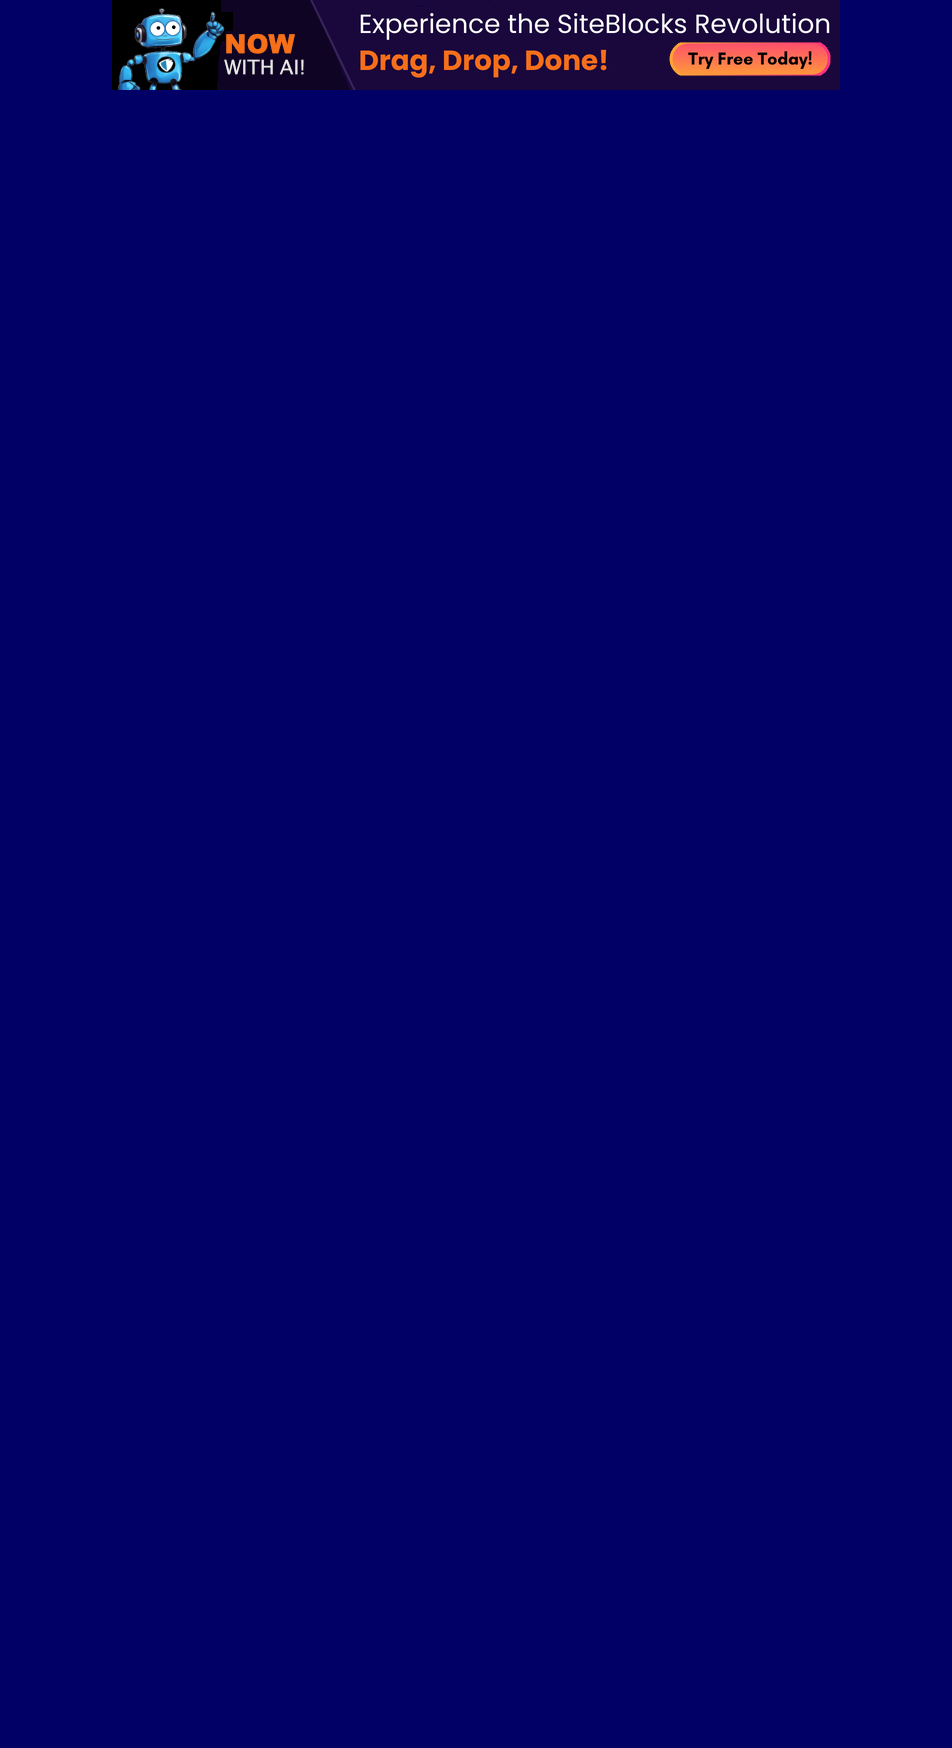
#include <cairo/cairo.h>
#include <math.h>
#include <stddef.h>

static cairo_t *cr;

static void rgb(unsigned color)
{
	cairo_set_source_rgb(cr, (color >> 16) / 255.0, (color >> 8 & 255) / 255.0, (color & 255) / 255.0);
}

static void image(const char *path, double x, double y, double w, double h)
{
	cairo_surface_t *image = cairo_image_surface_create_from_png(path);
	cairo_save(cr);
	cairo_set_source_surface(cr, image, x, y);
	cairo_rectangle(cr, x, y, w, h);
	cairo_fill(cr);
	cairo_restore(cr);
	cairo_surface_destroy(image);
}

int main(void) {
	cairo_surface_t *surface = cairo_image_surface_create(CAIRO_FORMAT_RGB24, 952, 1748);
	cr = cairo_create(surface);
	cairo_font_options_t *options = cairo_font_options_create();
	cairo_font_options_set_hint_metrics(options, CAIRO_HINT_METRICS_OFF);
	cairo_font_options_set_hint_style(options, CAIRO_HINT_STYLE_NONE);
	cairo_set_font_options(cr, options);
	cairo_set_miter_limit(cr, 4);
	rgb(0x000066);
	cairo_paint(cr);
	image("img/1.png", 112, 0, 728, 90);
	cairo_surface_write_to_png(surface, "page.png");
	cairo_font_options_destroy(options);
	cairo_destroy(cr);
	cairo_surface_destroy(surface);
	return 0;
}
